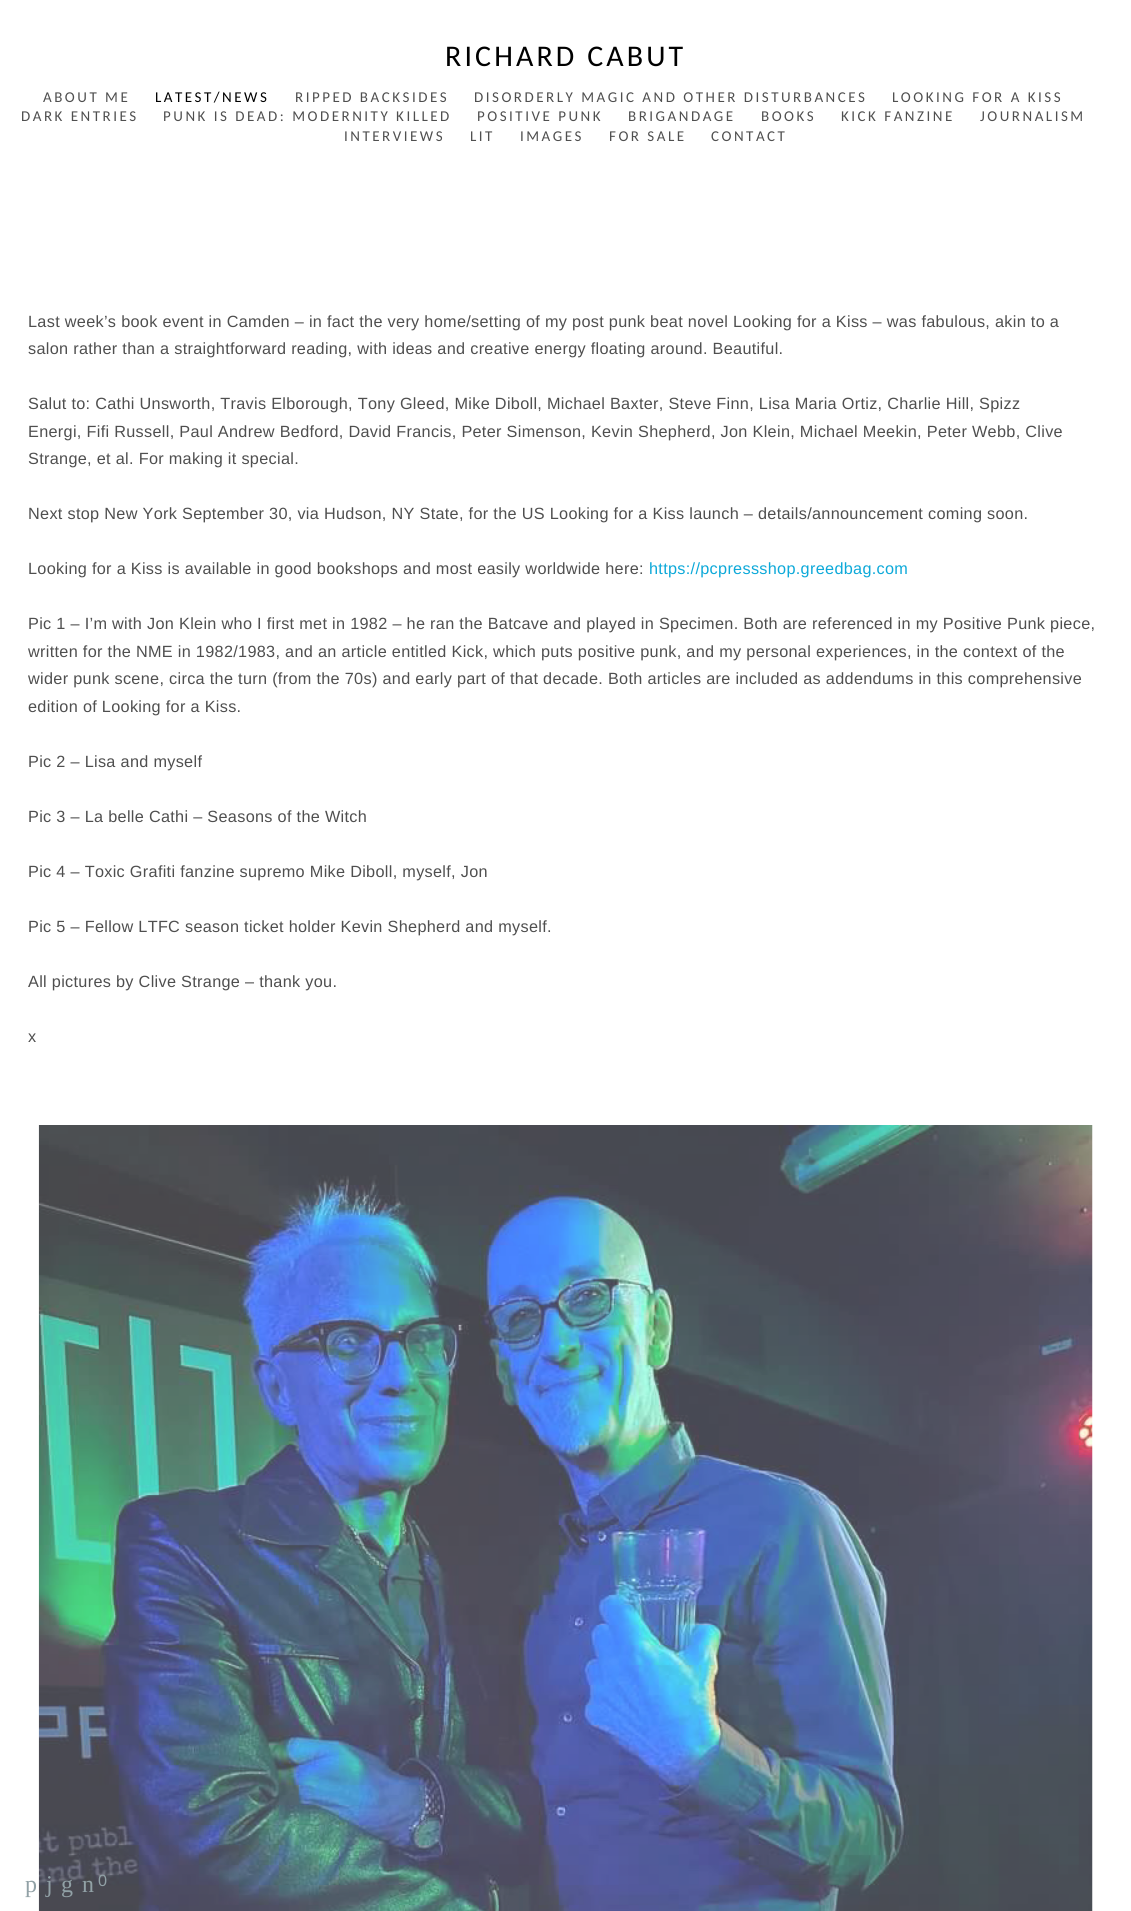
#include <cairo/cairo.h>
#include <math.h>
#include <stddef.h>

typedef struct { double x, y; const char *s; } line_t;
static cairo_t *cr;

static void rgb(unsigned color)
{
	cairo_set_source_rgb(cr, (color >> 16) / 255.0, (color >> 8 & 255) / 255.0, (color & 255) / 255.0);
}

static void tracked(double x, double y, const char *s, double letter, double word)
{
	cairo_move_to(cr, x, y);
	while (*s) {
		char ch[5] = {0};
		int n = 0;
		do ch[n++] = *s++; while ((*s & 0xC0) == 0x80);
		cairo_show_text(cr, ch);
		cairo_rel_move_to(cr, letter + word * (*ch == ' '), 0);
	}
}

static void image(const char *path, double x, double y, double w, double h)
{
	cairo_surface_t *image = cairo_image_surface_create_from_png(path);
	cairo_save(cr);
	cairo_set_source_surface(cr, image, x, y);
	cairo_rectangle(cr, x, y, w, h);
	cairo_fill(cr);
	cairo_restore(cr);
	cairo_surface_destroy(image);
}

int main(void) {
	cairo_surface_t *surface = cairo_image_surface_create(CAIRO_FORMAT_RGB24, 1131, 1911);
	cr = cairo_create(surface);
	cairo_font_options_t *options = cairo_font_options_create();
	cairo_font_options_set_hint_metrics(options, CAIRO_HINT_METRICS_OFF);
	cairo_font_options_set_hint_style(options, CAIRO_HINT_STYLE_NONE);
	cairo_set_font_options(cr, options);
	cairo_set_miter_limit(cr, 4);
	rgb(0xffffff);
	cairo_paint(cr);
	image("img/1.png", 38, 1125, 1055, 786);
	cairo_select_font_face(cr, "Carlito", CAIRO_FONT_SLANT_NORMAL, CAIRO_FONT_WEIGHT_NORMAL);
	cairo_set_font_size(cr, 30);
	rgb(0x000000);
	tracked(445, 66, "RICHARD CABUT", 3.1, 0);
	cairo_set_font_size(cr, 15);
	rgb(0x4f4f4f);
	tracked(43, 102, "ABOUT ME", 2.5, 0);
	rgb(0x000000);
	tracked(155, 102, "LATEST/NEWS", 2.5, 0);
	rgb(0x4f4f4f);
	{
		static const line_t items[] = {
			{295, 102, "RIPPED BACKSIDES"},
			{474, 102, "DISORDERLY MAGIC AND OTHER DISTURBANCES"},
			{892, 102, "LOOKING FOR A KISS"},
			{21, 121, "DARK ENTRIES"},
			{163, 121, "PUNK IS DEAD: MODERNITY KILLED"},
			{477, 121, "POSITIVE PUNK"},
			{628, 121, "BRIGANDAGE"},
			{761, 121, "BOOKS"},
			{841, 121, "KICK FANZINE"},
			{980, 121, "JOURNALISM"},
			{344, 141, "INTERVIEWS"},
			{470, 141, "LIT"},
			{520, 141, "IMAGES"},
			{609, 141, "FOR SALE"},
			{711, 141, "CONTACT"},
		};
		for (size_t i = 0; i < sizeof items / sizeof *items; i++) {
			tracked(items[i].x, items[i].y, items[i].s, 2.5, 0);
		}
	}
	cairo_select_font_face(cr, "Liberation Sans", CAIRO_FONT_SLANT_NORMAL, CAIRO_FONT_WEIGHT_NORMAL);
	cairo_set_font_size(cr, 16.25);
	{
		static const line_t items[] = {
			{28, 327, "Last week’s book event in Camden – in fact the very home/setting of my post punk beat novel Looking for a Kiss – was fabulous, akin to a"},
			{28, 354, "salon rather than a straightforward reading, with ideas and creative energy floating around. Beautiful."},
			{28, 409, "Salut to: Cathi Unsworth, Travis Elborough, Tony Gleed, Mike Diboll, Michael Baxter, Steve Finn, Lisa Maria Ortiz, Charlie Hill, Spizz"},
			{28, 437, "Energi, Fifi Russell, Paul Andrew Bedford, David Francis, Peter Simenson, Kevin Shepherd, Jon Klein, Michael Meekin, Peter Webb, Clive"},
			{28, 464, "Strange, et al. For making it special."},
			{28, 519, "Next stop New York September 30, via Hudson, NY State, for the US Looking for a Kiss launch – details/announcement coming soon."},
			{28, 574, "Looking for a Kiss is available in good bookshops and most easily worldwide here:"},
		};
		for (size_t i = 0; i < sizeof items / sizeof *items; i++) {
			tracked(items[i].x, items[i].y, items[i].s, 0.31, 0);
		}
	}
	rgb(0x0da9d9);
	tracked(649, 574, "https://pcpressshop.greedbag.com", 0.31, 0);
	rgb(0x4f4f4f);
	{
		static const line_t items[] = {
			{28, 629, "Pic 1 – I’m with Jon Klein who I first met in 1982 – he ran the Batcave and played in Specimen. Both are referenced in my Positive Punk piece,"},
			{28, 657, "written for the NME in 1982/1983, and an article entitled Kick, which puts positive punk, and my personal experiences, in the context of the"},
			{28, 684, "wider punk scene, circa the turn (from the 70s) and early part of that decade. Both articles are included as addendums in this comprehensive"},
			{28, 712, "edition of Looking for a Kiss."},
			{28, 767, "Pic 2 – Lisa and myself"},
			{28, 822, "Pic 3 – La belle Cathi – Seasons of the Witch"},
			{28, 877, "Pic 4 – Toxic Grafiti fanzine supremo Mike Diboll, myself, Jon"},
			{28, 932, "Pic 5 – Fellow LTFC season ticket holder Kevin Shepherd and myself."},
			{28, 987, "All pictures by Clive Strange – thank you."},
			{28, 1042, "x"},
		};
		for (size_t i = 0; i < sizeof items / sizeof *items; i++) {
			tracked(items[i].x, items[i].y, items[i].s, 0.31, 0);
		}
	}
	cairo_select_font_face(cr, "Liberation Serif", CAIRO_FONT_SLANT_NORMAL, CAIRO_FONT_WEIGHT_NORMAL);
	cairo_set_font_size(cr, 24);
	rgb(0x91a1a6);
	{
		static const line_t items[] = {
			{25, 1892, "p"},
			{46, 1892, "j"},
			{61, 1892, "g"},
			{82, 1892, "n"},
		};
		for (size_t i = 0; i < sizeof items / sizeof *items; i++) {
			cairo_move_to(cr, items[i].x, items[i].y);
			cairo_show_text(cr, items[i].s);
		}
	}
	cairo_select_font_face(cr, "Liberation Sans", CAIRO_FONT_SLANT_NORMAL, CAIRO_FONT_WEIGHT_NORMAL);
	cairo_set_font_size(cr, 16.25);
	cairo_move_to(cr, 98, 1886);
	cairo_show_text(cr, "0");
	cairo_surface_write_to_png(surface, "page.png");
	cairo_font_options_destroy(options);
	cairo_destroy(cr);
	cairo_surface_destroy(surface);
	return 0;
}
